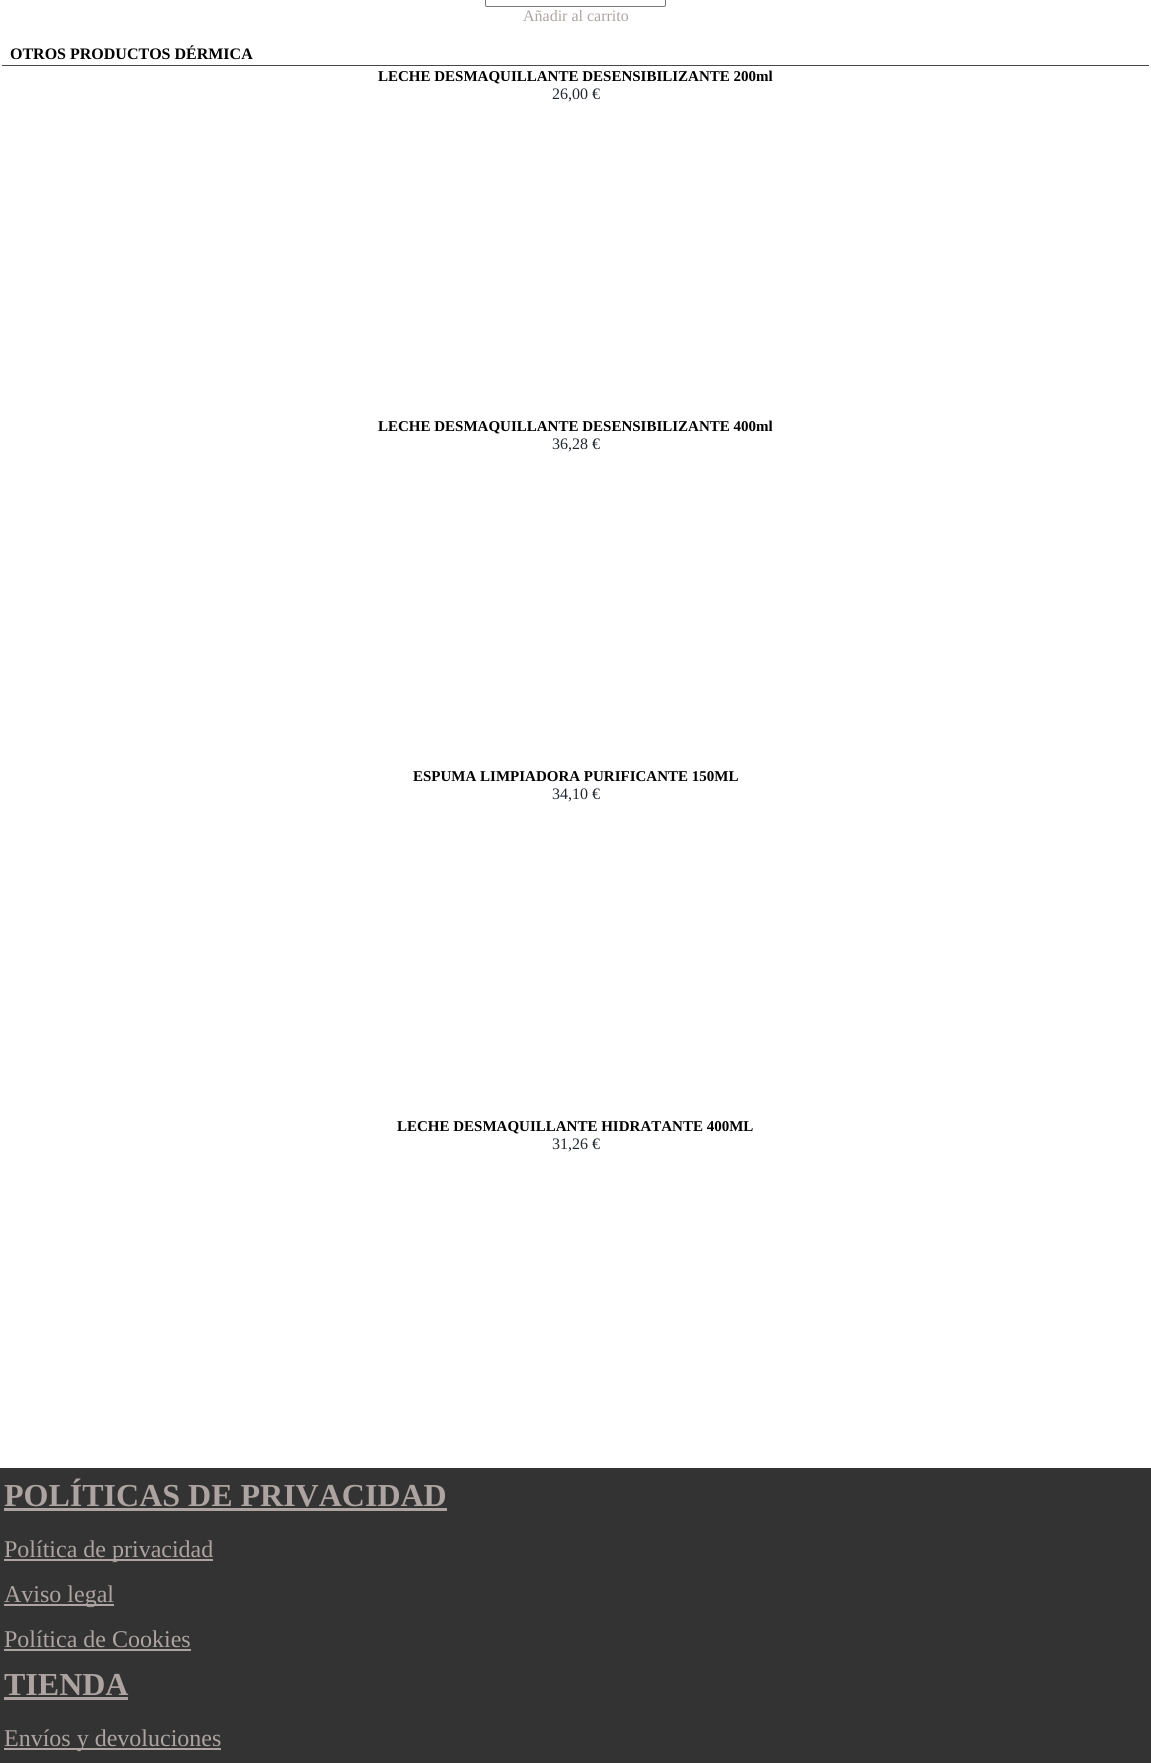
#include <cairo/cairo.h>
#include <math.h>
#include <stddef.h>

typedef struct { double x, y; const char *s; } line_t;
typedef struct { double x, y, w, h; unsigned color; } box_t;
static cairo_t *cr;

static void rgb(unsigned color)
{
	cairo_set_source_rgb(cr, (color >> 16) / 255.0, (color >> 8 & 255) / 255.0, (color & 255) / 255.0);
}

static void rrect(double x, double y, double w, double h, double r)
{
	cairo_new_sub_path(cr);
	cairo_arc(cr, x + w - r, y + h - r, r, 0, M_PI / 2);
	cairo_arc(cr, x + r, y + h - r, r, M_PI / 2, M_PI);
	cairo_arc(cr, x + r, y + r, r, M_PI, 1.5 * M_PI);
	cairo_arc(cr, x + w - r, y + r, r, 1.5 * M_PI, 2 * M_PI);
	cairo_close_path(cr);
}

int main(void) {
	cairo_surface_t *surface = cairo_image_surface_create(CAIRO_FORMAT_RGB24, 1151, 1763);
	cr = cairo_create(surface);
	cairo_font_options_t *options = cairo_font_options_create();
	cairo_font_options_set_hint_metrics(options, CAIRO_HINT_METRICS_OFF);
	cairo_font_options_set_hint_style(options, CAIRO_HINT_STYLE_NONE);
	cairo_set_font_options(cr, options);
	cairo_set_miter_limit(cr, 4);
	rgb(0xffffff);
	cairo_paint(cr);
	rrect(485.5, -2.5, 180, 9, 1.5);
	rgb(0x767676);
	cairo_set_line_width(cr, 1);
	cairo_stroke(cr);
	{
		static const box_t items[] = {
			{2, 65, 1147, 1, 0x45484a},
			{0, 1468, 1151, 295, 0x333333},
			{4, 1508, 443, 3, 0xada4a2},
			{4, 1559, 209, 2, 0xada4a2},
			{4, 1604, 110, 2, 0xada4a2},
			{4, 1649, 187, 2, 0xada4a2},
			{4, 1697, 124, 3, 0xada4a2},
			{4, 1748, 217, 2, 0xada4a2},
		};
		for (size_t i = 0; i < sizeof items / sizeof *items; i++) {
			rgb(items[i].color);
			cairo_rectangle(cr, items[i].x, items[i].y, items[i].w, items[i].h);
			cairo_fill(cr);
		}
	}
	cairo_select_font_face(cr, "Liberation Serif", CAIRO_FONT_SLANT_NORMAL, CAIRO_FONT_WEIGHT_NORMAL);
	cairo_set_font_size(cr, 16);
	cairo_move_to(cr, 523, 21);
	cairo_show_text(cr, "Añadir al carrito");
	cairo_select_font_face(cr, "Liberation Serif", CAIRO_FONT_SLANT_NORMAL, CAIRO_FONT_WEIGHT_BOLD);
	rgb(0x000000);
	cairo_move_to(cr, 10, 59);
	cairo_show_text(cr, "OTROS PRODUCTOS DÉRMICA");
	cairo_set_font_size(cr, 15);
	cairo_move_to(cr, 378, 81);
	cairo_show_text(cr, "LECHE DESMAQUILLANTE DESENSIBILIZANTE 200ml");
	cairo_select_font_face(cr, "Liberation Serif", CAIRO_FONT_SLANT_NORMAL, CAIRO_FONT_WEIGHT_NORMAL);
	cairo_set_font_size(cr, 16);
	rgb(0x242831);
	cairo_move_to(cr, 552, 99);
	cairo_show_text(cr, "26,00 €");
	cairo_select_font_face(cr, "Liberation Serif", CAIRO_FONT_SLANT_NORMAL, CAIRO_FONT_WEIGHT_BOLD);
	cairo_set_font_size(cr, 15);
	rgb(0x000000);
	cairo_move_to(cr, 378, 431);
	cairo_show_text(cr, "LECHE DESMAQUILLANTE DESENSIBILIZANTE 400ml");
	cairo_select_font_face(cr, "Liberation Serif", CAIRO_FONT_SLANT_NORMAL, CAIRO_FONT_WEIGHT_NORMAL);
	cairo_set_font_size(cr, 16);
	rgb(0x242831);
	cairo_move_to(cr, 552, 449);
	cairo_show_text(cr, "36,28 €");
	cairo_select_font_face(cr, "Liberation Serif", CAIRO_FONT_SLANT_NORMAL, CAIRO_FONT_WEIGHT_BOLD);
	cairo_set_font_size(cr, 15);
	rgb(0x000000);
	cairo_move_to(cr, 413, 781);
	cairo_show_text(cr, "ESPUMA LIMPIADORA PURIFICANTE 150ML");
	cairo_select_font_face(cr, "Liberation Serif", CAIRO_FONT_SLANT_NORMAL, CAIRO_FONT_WEIGHT_NORMAL);
	cairo_set_font_size(cr, 16);
	rgb(0x242831);
	cairo_move_to(cr, 552, 799);
	cairo_show_text(cr, "34,10 €");
	cairo_select_font_face(cr, "Liberation Serif", CAIRO_FONT_SLANT_NORMAL, CAIRO_FONT_WEIGHT_BOLD);
	cairo_set_font_size(cr, 15);
	rgb(0x000000);
	cairo_move_to(cr, 397, 1131);
	cairo_show_text(cr, "LECHE DESMAQUILLANTE HIDRATANTE 400ML");
	cairo_select_font_face(cr, "Liberation Serif", CAIRO_FONT_SLANT_NORMAL, CAIRO_FONT_WEIGHT_NORMAL);
	cairo_set_font_size(cr, 16);
	rgb(0x242831);
	cairo_move_to(cr, 552, 1149);
	cairo_show_text(cr, "31,26 €");
	cairo_select_font_face(cr, "Liberation Serif", CAIRO_FONT_SLANT_NORMAL, CAIRO_FONT_WEIGHT_BOLD);
	cairo_set_font_size(cr, 32);
	rgb(0xada4a2);
	cairo_move_to(cr, 4, 1506);
	cairo_show_text(cr, "POLÍTICAS DE PRIVACIDAD");
	cairo_select_font_face(cr, "Liberation Serif", CAIRO_FONT_SLANT_NORMAL, CAIRO_FONT_WEIGHT_NORMAL);
	cairo_set_font_size(cr, 24);
	{
		static const line_t items[] = {
			{4, 1557, "Política de privacidad"},
			{4, 1602, "Aviso legal"},
			{4, 1647, "Política de Cookies"},
		};
		for (size_t i = 0; i < sizeof items / sizeof *items; i++) {
			cairo_move_to(cr, items[i].x, items[i].y);
			cairo_show_text(cr, items[i].s);
		}
	}
	cairo_select_font_face(cr, "Liberation Serif", CAIRO_FONT_SLANT_NORMAL, CAIRO_FONT_WEIGHT_BOLD);
	cairo_set_font_size(cr, 32);
	cairo_move_to(cr, 4, 1695);
	cairo_show_text(cr, "TIENDA");
	cairo_select_font_face(cr, "Liberation Serif", CAIRO_FONT_SLANT_NORMAL, CAIRO_FONT_WEIGHT_NORMAL);
	cairo_set_font_size(cr, 24);
	cairo_move_to(cr, 4, 1746);
	cairo_show_text(cr, "Envíos y devoluciones");
	cairo_surface_write_to_png(surface, "page.png");
	cairo_font_options_destroy(options);
	cairo_destroy(cr);
	cairo_surface_destroy(surface);
	return 0;
}
